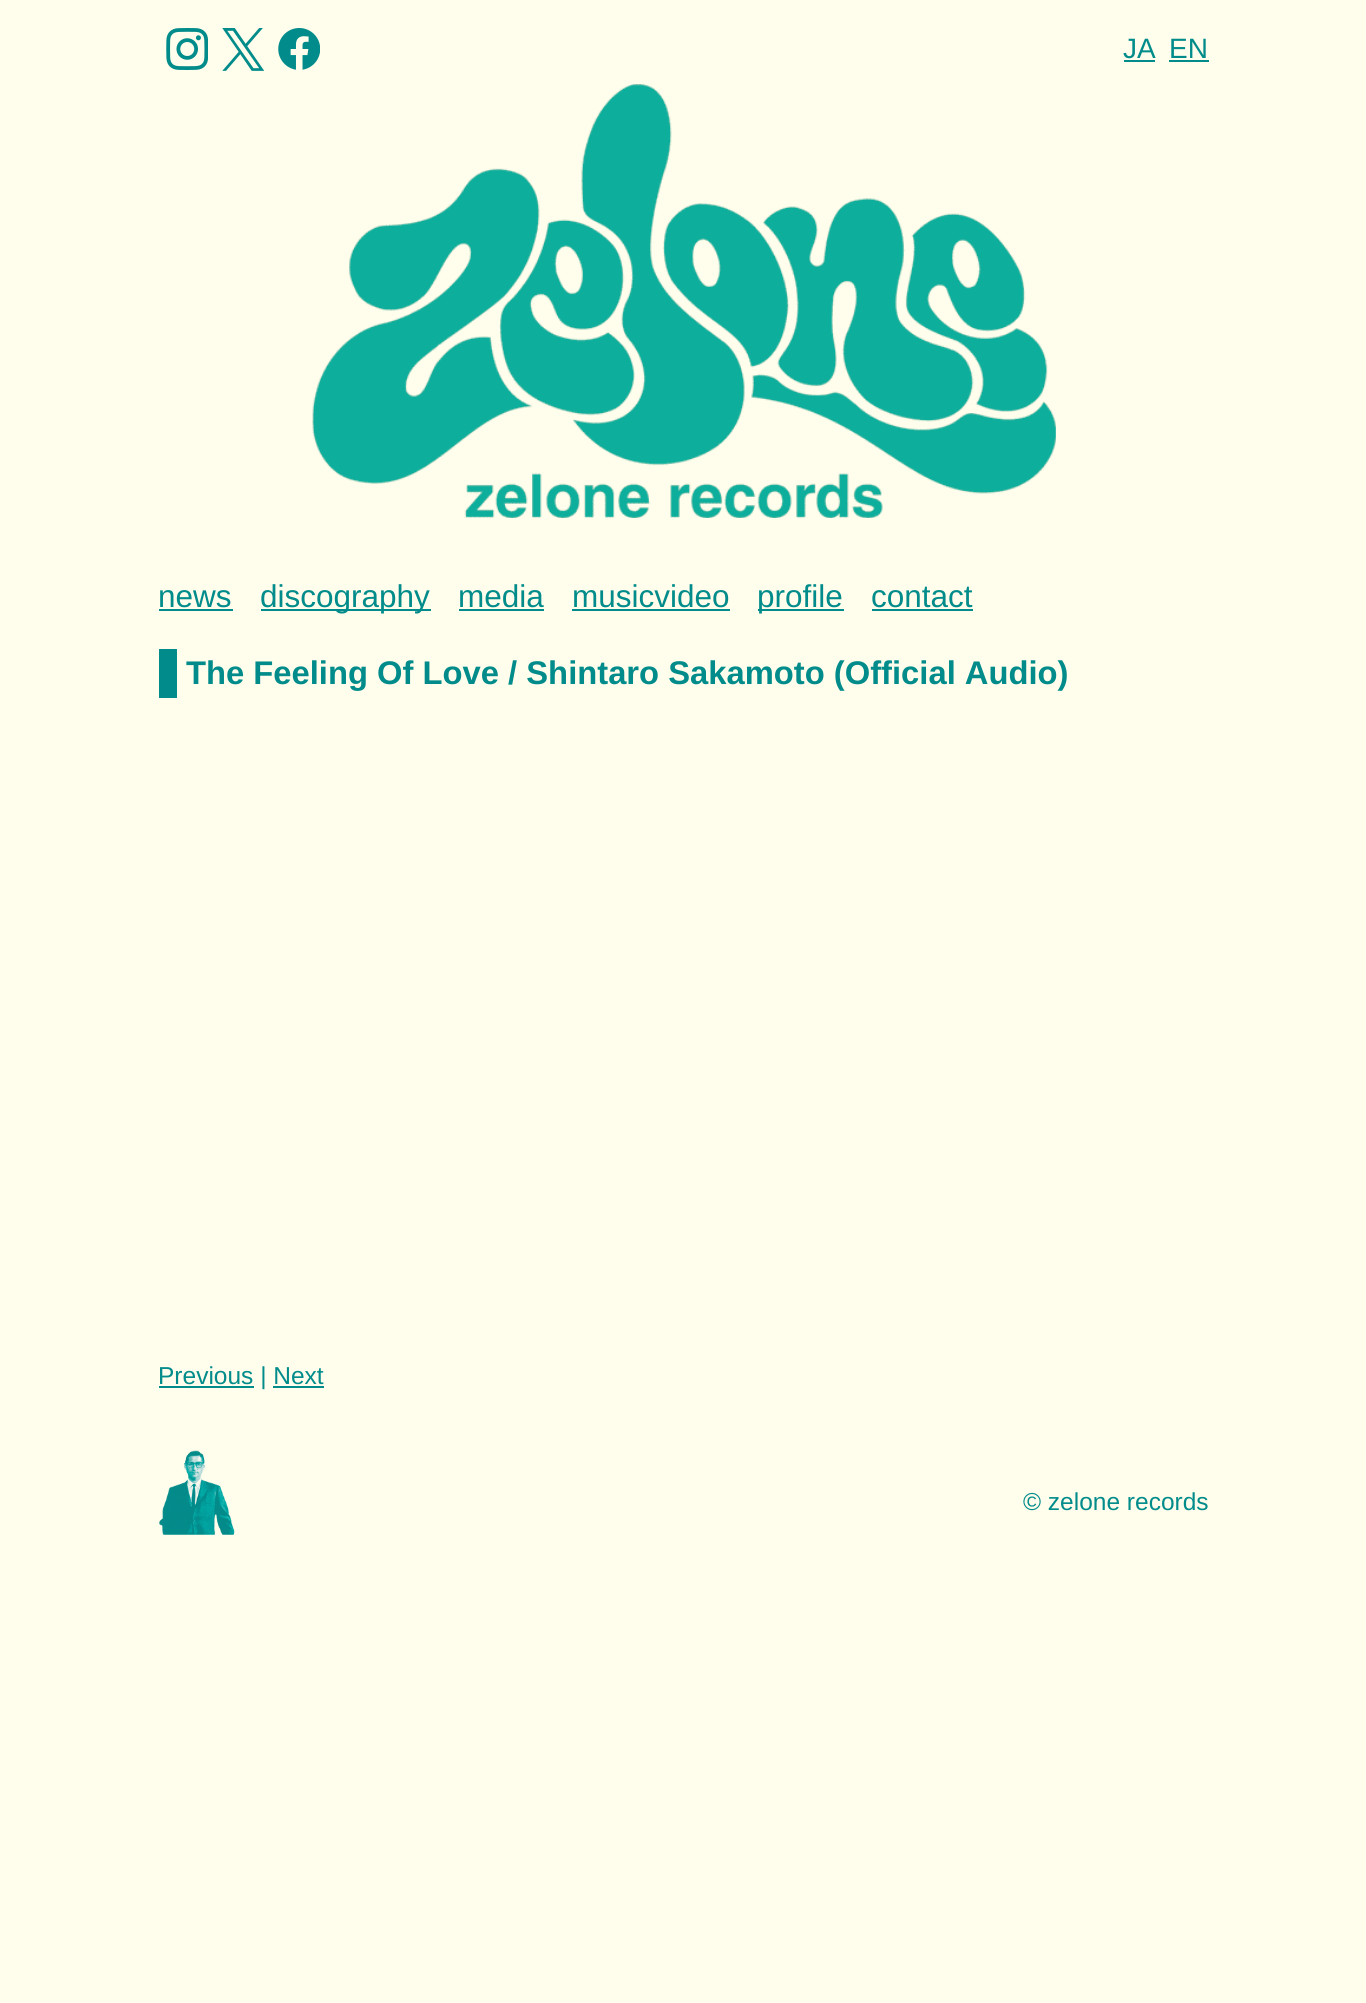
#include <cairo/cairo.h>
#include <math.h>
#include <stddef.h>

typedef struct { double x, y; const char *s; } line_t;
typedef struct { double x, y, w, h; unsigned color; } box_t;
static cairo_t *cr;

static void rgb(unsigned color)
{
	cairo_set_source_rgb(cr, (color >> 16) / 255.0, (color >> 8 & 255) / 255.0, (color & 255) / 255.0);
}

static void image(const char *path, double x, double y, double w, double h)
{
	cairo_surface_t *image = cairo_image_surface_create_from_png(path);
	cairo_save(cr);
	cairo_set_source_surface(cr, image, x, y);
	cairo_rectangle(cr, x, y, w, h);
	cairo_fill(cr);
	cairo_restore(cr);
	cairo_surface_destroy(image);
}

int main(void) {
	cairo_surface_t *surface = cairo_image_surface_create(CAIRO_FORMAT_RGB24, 1366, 2003);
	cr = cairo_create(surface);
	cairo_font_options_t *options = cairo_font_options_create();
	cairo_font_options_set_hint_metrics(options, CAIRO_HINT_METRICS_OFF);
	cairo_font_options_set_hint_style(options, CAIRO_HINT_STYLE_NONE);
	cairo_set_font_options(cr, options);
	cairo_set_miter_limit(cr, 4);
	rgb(0xfffdeb);
	cairo_paint(cr);
	image("img/1.png", 166, 28, 42, 42);
	image("img/2.png", 222, 28, 42, 43);
	image("img/3.png", 278, 28, 42, 42);
	rgb(0x018c8b);
	cairo_rectangle(cr, 1124, 60, 31, 2);
	cairo_fill(cr);
	cairo_rectangle(cr, 1169, 60, 40, 2);
	cairo_fill(cr);
	image("img/4.png", 312, 84, 744, 434);
	{
		static const box_t items[] = {
			{159, 609, 74, 2, 0x018c8b},
			{261, 609, 170, 2, 0x018c8b},
			{459, 609, 85, 2, 0x018c8b},
			{572, 609, 158, 2, 0x018c8b},
			{758, 609, 86, 2, 0x018c8b},
			{872, 609, 101, 2, 0x018c8b},
			{159, 649, 18, 49, 0x018c8b},
			{159, 1386, 95, 2, 0x018c8b},
			{273, 1386, 51, 2, 0x018c8b},
		};
		for (size_t i = 0; i < sizeof items / sizeof *items; i++) {
			rgb(items[i].color);
			cairo_rectangle(cr, items[i].x, items[i].y, items[i].w, items[i].h);
			cairo_fill(cr);
		}
	}
	image("img/5.png", 159, 1450, 76, 85);
	cairo_select_font_face(cr, "Liberation Sans", CAIRO_FONT_SLANT_NORMAL, CAIRO_FONT_WEIGHT_NORMAL);
	cairo_set_font_size(cr, 28);
	cairo_move_to(cr, 1123, 58);
	cairo_show_text(cr, "JA");
	cairo_move_to(cr, 1169, 58);
	cairo_show_text(cr, "EN");
	cairo_set_font_size(cr, 31.5);
	{
		static const line_t items[] = {
			{158, 607, "news"},
			{260, 607, "discography"},
			{458, 607, "media"},
			{572, 607, "musicvideo"},
			{757, 607, "profile"},
			{871, 607, "contact"},
		};
		for (size_t i = 0; i < sizeof items / sizeof *items; i++) {
			cairo_move_to(cr, items[i].x, items[i].y);
			cairo_show_text(cr, items[i].s);
		}
	}
	cairo_select_font_face(cr, "Liberation Sans", CAIRO_FONT_SLANT_NORMAL, CAIRO_FONT_WEIGHT_BOLD);
	cairo_set_font_size(cr, 32.75);
	cairo_move_to(cr, 186, 684);
	cairo_show_text(cr, "The Feeling Of Love / Shintaro Sakamoto (Official Audio)");
	cairo_select_font_face(cr, "Liberation Sans", CAIRO_FONT_SLANT_NORMAL, CAIRO_FONT_WEIGHT_NORMAL);
	cairo_set_font_size(cr, 24.5);
	cairo_move_to(cr, 158, 1384);
	cairo_show_text(cr, "Previous | Next");
	cairo_move_to(cr, 1023, 1510);
	cairo_show_text(cr, "© zelone records");
	cairo_surface_write_to_png(surface, "page.png");
	cairo_font_options_destroy(options);
	cairo_destroy(cr);
	cairo_surface_destroy(surface);
	return 0;
}
